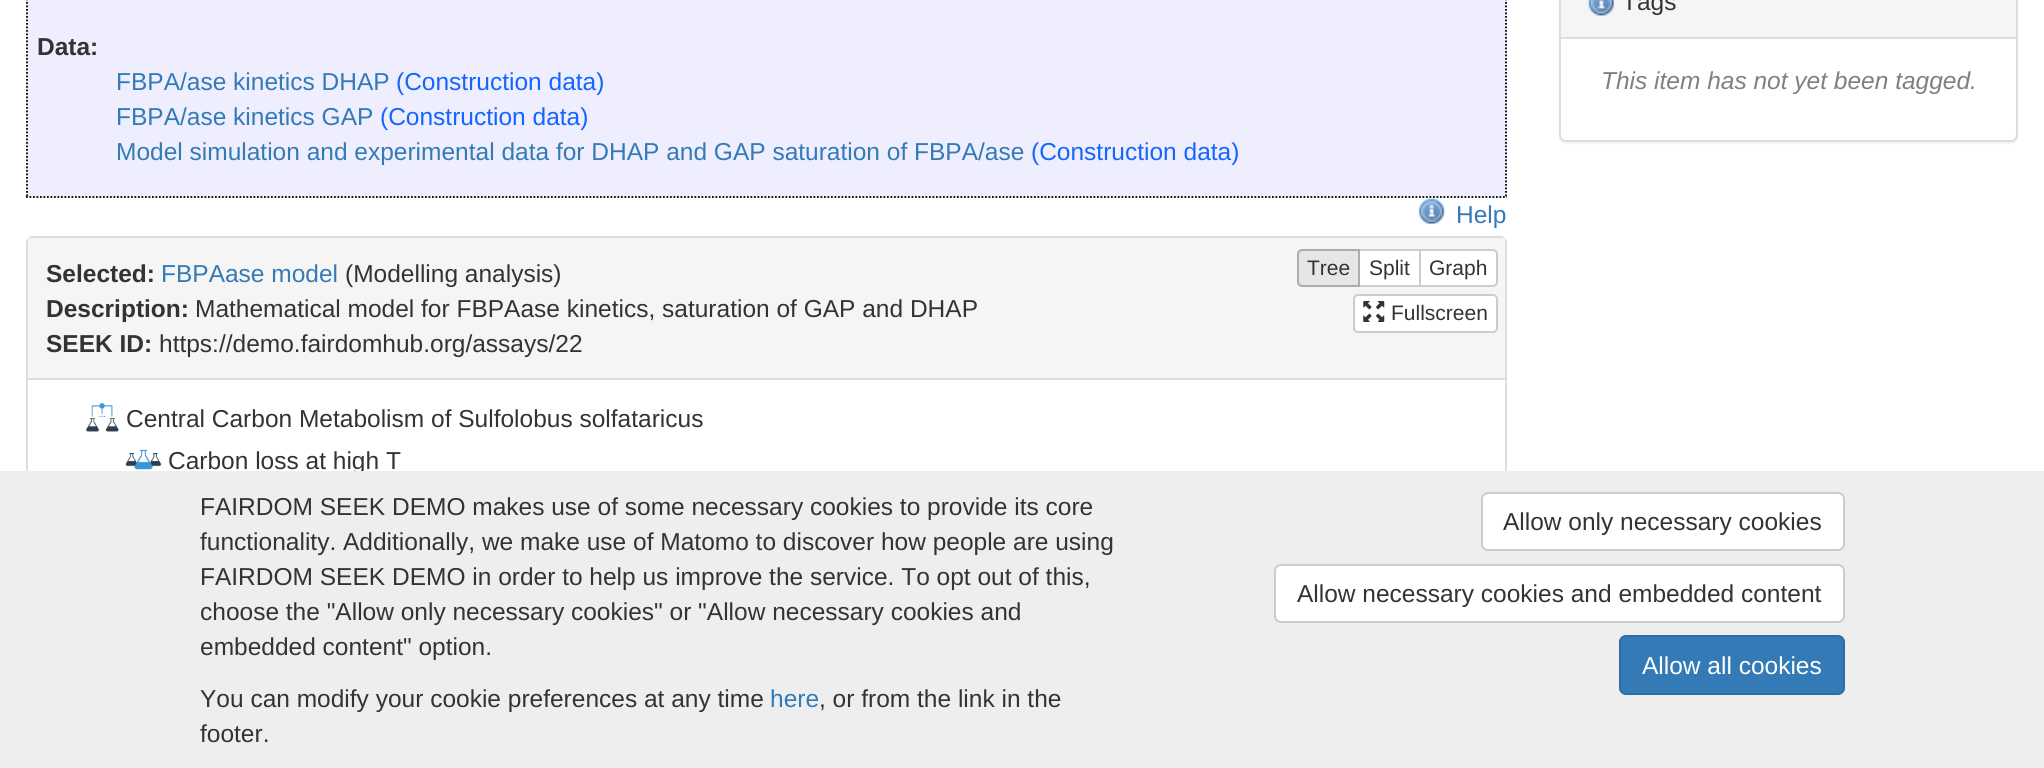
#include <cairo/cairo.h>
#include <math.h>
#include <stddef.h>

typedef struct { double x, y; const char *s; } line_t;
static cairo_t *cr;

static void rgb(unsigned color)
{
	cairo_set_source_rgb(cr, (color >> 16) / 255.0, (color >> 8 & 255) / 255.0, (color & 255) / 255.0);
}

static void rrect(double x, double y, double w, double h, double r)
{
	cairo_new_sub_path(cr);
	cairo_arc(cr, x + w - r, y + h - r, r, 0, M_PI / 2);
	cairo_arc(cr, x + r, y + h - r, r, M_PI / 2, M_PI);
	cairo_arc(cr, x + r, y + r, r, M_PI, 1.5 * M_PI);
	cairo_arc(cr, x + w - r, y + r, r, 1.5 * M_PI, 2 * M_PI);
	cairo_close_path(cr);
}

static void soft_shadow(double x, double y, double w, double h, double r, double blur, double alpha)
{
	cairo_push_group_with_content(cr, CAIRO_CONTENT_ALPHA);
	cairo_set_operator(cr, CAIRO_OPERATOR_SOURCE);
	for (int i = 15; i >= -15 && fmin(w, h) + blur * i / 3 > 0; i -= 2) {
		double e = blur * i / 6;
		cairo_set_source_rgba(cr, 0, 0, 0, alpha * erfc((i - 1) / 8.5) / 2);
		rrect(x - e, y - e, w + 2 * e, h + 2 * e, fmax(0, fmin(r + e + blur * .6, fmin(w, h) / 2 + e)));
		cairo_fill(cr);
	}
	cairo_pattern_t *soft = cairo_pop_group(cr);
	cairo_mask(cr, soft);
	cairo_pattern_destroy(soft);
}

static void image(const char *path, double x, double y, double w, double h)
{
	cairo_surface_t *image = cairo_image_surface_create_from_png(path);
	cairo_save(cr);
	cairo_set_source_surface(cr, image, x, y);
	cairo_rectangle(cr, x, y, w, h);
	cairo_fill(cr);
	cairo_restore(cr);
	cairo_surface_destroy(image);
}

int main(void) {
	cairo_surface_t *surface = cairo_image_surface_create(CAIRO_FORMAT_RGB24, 2044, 768);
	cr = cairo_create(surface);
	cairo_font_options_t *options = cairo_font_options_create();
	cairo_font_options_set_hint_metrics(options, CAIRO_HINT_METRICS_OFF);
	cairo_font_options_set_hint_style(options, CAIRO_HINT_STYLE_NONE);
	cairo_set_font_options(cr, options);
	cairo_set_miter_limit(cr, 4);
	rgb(0xffffff);
	cairo_paint(cr);
	rgb(0xeeeeff);
	cairo_rectangle(cr, 26, 0, 1481, 198);
	cairo_fill(cr);
	cairo_new_path(cr);
	cairo_move_to(cr, 1506, -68);
	cairo_line_to(cr, 1506, 198);
	rgb(0x000000);
	cairo_set_line_width(cr, 1.8);
	cairo_set_dash(cr, (double[]){1.75, 1.75}, 2, 0);
	cairo_stroke(cr);
	cairo_new_path(cr);
	cairo_move_to(cr, 26, 197);
	cairo_line_to(cr, 1507, 197);
	cairo_stroke(cr);
	cairo_new_path(cr);
	cairo_move_to(cr, 27, -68);
	cairo_line_to(cr, 27, 198);
	cairo_stroke(cr);
	image("img/1.png", 1418, 198, 27, 26);
	rrect(27, 237, 1479, 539, 6);
	rgb(0xdddddd);
	cairo_set_line_width(cr, 2);
	cairo_set_dash(cr, NULL, 0, 0);
	cairo_stroke(cr);
	rgb(0xf5f5f5);
	cairo_rectangle(cr, 28, 238, 1477, 140);
	cairo_fill(cr);
	rgb(0xdddddd);
	cairo_rectangle(cr, 28, 378, 1477, 2);
	cairo_fill(cr);
	rgb(0xffffff);
	cairo_rectangle(cr, 1359, 250, 61, 36);
	cairo_fill_preserve(cr);
	rgb(0xcccccc);
	cairo_stroke(cr);
	rgb(0xe6e6e6);
	cairo_new_path(cr);
	cairo_move_to(cr, 1302, 250);
	cairo_line_to(cr, 1359, 250);
	cairo_line_to(cr, 1359, 286);
	cairo_line_to(cr, 1302, 286);
	cairo_curve_to(cr, 1300, 286, 1298, 284, 1298, 282);
	cairo_line_to(cr, 1298, 254);
	cairo_curve_to(cr, 1298, 252, 1300, 250, 1302, 250);
	cairo_close_path(cr);
	cairo_fill_preserve(cr);
	rgb(0xadadad);
	cairo_stroke(cr);
	rgb(0xffffff);
	cairo_new_path(cr);
	cairo_move_to(cr, 1420, 250);
	cairo_line_to(cr, 1493, 250);
	cairo_curve_to(cr, 1495, 250, 1497, 252, 1497, 254);
	cairo_line_to(cr, 1497, 282);
	cairo_curve_to(cr, 1497, 284, 1495, 286, 1493, 286);
	cairo_line_to(cr, 1420, 286);
	cairo_close_path(cr);
	cairo_fill_preserve(cr);
	rgb(0xcccccc);
	cairo_stroke(cr);
	rgb(0xffffff);
	rrect(1354, 295, 143, 37, 4);
	cairo_fill_preserve(cr);
	rgb(0xcccccc);
	cairo_stroke(cr);
	image("img/2.png", 1363, 301, 22, 21);
	image("img/3.png", 86, 402, 33, 30);
	image("img/4.png", 125, 449, 37, 21);
	rgb(0x000000);
	soft_shadow(1559, -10, 459, 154, 7, 1, 0.05);
	rgb(0xffffff);
	rrect(1560, -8, 457, 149, 6);
	cairo_fill_preserve(cr);
	rgb(0xdddddd);
	cairo_stroke(cr);
	rgb(0xf5f5f5);
	cairo_rectangle(cr, 1561, 0, 455, 37);
	cairo_fill(cr);
	rgb(0xdddddd);
	cairo_rectangle(cr, 1561, 37, 455, 2);
	cairo_fill(cr);
	image("img/5.png", 1588, 0, 26, 16);
	cairo_select_font_face(cr, "Liberation Sans", CAIRO_FONT_SLANT_NORMAL, CAIRO_FONT_WEIGHT_BOLD);
	cairo_set_font_size(cr, 24.5);
	rgb(0x333333);
	cairo_move_to(cr, 37, 55);
	cairo_show_text(cr, "Data:");
	cairo_select_font_face(cr, "Liberation Sans", CAIRO_FONT_SLANT_NORMAL, CAIRO_FONT_WEIGHT_NORMAL);
	rgb(0x337ab7);
	cairo_move_to(cr, 116, 90);
	cairo_show_text(cr, "FBPA/ase kinetics DHAP");
	rgb(0x1465ff);
	cairo_move_to(cr, 396, 90);
	cairo_show_text(cr, "(Construction data)");
	rgb(0x337ab7);
	cairo_move_to(cr, 116, 125);
	cairo_show_text(cr, "FBPA/ase kinetics GAP");
	rgb(0x1465ff);
	cairo_move_to(cr, 380, 125);
	cairo_show_text(cr, "(Construction data)");
	rgb(0x337ab7);
	cairo_move_to(cr, 116, 160);
	cairo_show_text(cr, "Model simulation and experimental data for DHAP and GAP saturation of FBPA/ase");
	rgb(0x1465ff);
	cairo_move_to(cr, 1031, 160);
	cairo_show_text(cr, "(Construction data)");
	rgb(0x337ab7);
	cairo_move_to(cr, 1456, 223);
	cairo_show_text(cr, "Help");
	cairo_select_font_face(cr, "Liberation Sans", CAIRO_FONT_SLANT_NORMAL, CAIRO_FONT_WEIGHT_BOLD);
	rgb(0x333333);
	cairo_move_to(cr, 46, 282);
	cairo_show_text(cr, "Selected:");
	cairo_select_font_face(cr, "Liberation Sans", CAIRO_FONT_SLANT_NORMAL, CAIRO_FONT_WEIGHT_NORMAL);
	rgb(0x337ab7);
	cairo_move_to(cr, 161, 282);
	cairo_show_text(cr, "FBPAase model");
	rgb(0x333333);
	cairo_move_to(cr, 345, 282);
	cairo_show_text(cr, "(Modelling analysis)");
	cairo_select_font_face(cr, "Liberation Sans", CAIRO_FONT_SLANT_NORMAL, CAIRO_FONT_WEIGHT_BOLD);
	cairo_move_to(cr, 46, 317);
	cairo_show_text(cr, "Description:");
	cairo_select_font_face(cr, "Liberation Sans", CAIRO_FONT_SLANT_NORMAL, CAIRO_FONT_WEIGHT_NORMAL);
	cairo_move_to(cr, 195, 317);
	cairo_show_text(cr, "Mathematical model for FBPAase kinetics, saturation of GAP and DHAP");
	cairo_select_font_face(cr, "Liberation Sans", CAIRO_FONT_SLANT_NORMAL, CAIRO_FONT_WEIGHT_BOLD);
	cairo_move_to(cr, 46, 352);
	cairo_show_text(cr, "SEEK ID:");
	cairo_select_font_face(cr, "Liberation Sans", CAIRO_FONT_SLANT_NORMAL, CAIRO_FONT_WEIGHT_NORMAL);
	cairo_move_to(cr, 159, 352);
	cairo_show_text(cr, "https://demo.fairdomhub.org/assays/22");
	cairo_set_font_size(cr, 21);
	{
		static const line_t items[] = {
			{1307, 275, "Tree"},
			{1369, 275, "Split"},
			{1429, 275, "Graph"},
			{1391, 320, "Fullscreen"},
		};
		for (size_t i = 0; i < sizeof items / sizeof *items; i++) {
			cairo_move_to(cr, items[i].x, items[i].y);
			cairo_show_text(cr, items[i].s);
		}
	}
	cairo_set_font_size(cr, 24.5);
	{
		static const line_t items[] = {
			{126, 427, "Central Carbon Metabolism of Sulfolobus solfataricus"},
			{168, 469, "Carbon loss at high T"},
			{1622, 10, "Tags"},
		};
		for (size_t i = 0; i < sizeof items / sizeof *items; i++) {
			cairo_move_to(cr, items[i].x, items[i].y);
			cairo_show_text(cr, items[i].s);
		}
	}
	cairo_select_font_face(cr, "Liberation Sans", CAIRO_FONT_SLANT_ITALIC, CAIRO_FONT_WEIGHT_NORMAL);
	rgb(0x808080);
	cairo_move_to(cr, 1601, 89);
	cairo_show_text(cr, "This item has not yet been tagged.");
	rgb(0xeeeeee);
	cairo_rectangle(cr, 0, 471, 2044, 297);
	cairo_fill(cr);
	cairo_select_font_face(cr, "Liberation Sans", CAIRO_FONT_SLANT_NORMAL, CAIRO_FONT_WEIGHT_NORMAL);
	rgb(0x333333);
	{
		static const line_t items[] = {
			{200, 515, "FAIRDOM SEEK DEMO makes use of some necessary cookies to provide its core"},
			{200, 550, "functionality. Additionally, we make use of Matomo to discover how people are using"},
			{200, 585, "FAIRDOM SEEK DEMO in order to help us improve the service. To opt out of this,"},
			{200, 620, "choose the \"Allow only necessary cookies\" or \"Allow necessary cookies and"},
			{200, 655, "embedded content\" option."},
			{200, 707, "You can modify your cookie preferences at any time"},
		};
		for (size_t i = 0; i < sizeof items / sizeof *items; i++) {
			cairo_move_to(cr, items[i].x, items[i].y);
			cairo_show_text(cr, items[i].s);
		}
	}
	rgb(0x337ab7);
	cairo_move_to(cr, 770, 707);
	cairo_show_text(cr, "here");
	rgb(0x333333);
	cairo_move_to(cr, 819, 707);
	cairo_show_text(cr, ", or from the link in the");
	cairo_move_to(cr, 200, 742);
	cairo_show_text(cr, "footer.");
	rgb(0xffffff);
	rrect(1482, 493, 362, 57, 6);
	cairo_fill_preserve(cr);
	rgb(0xcccccc);
	cairo_stroke(cr);
	rgb(0x333333);
	cairo_move_to(cr, 1503, 530);
	cairo_show_text(cr, "Allow only necessary cookies");
	rgb(0xffffff);
	rrect(1275, 565, 569, 57, 6);
	cairo_fill_preserve(cr);
	rgb(0xcccccc);
	cairo_stroke(cr);
	rgb(0x333333);
	cairo_move_to(cr, 1297, 602);
	cairo_show_text(cr, "Allow necessary cookies and embedded content");
	rgb(0x337ab7);
	rrect(1620, 636, 224, 58, 6);
	cairo_fill_preserve(cr);
	rgb(0x2e6da4);
	cairo_stroke(cr);
	rgb(0xffffff);
	cairo_move_to(cr, 1642, 674);
	cairo_show_text(cr, "Allow all cookies");
	cairo_surface_write_to_png(surface, "page.png");
	cairo_font_options_destroy(options);
	cairo_destroy(cr);
	cairo_surface_destroy(surface);
	return 0;
}
